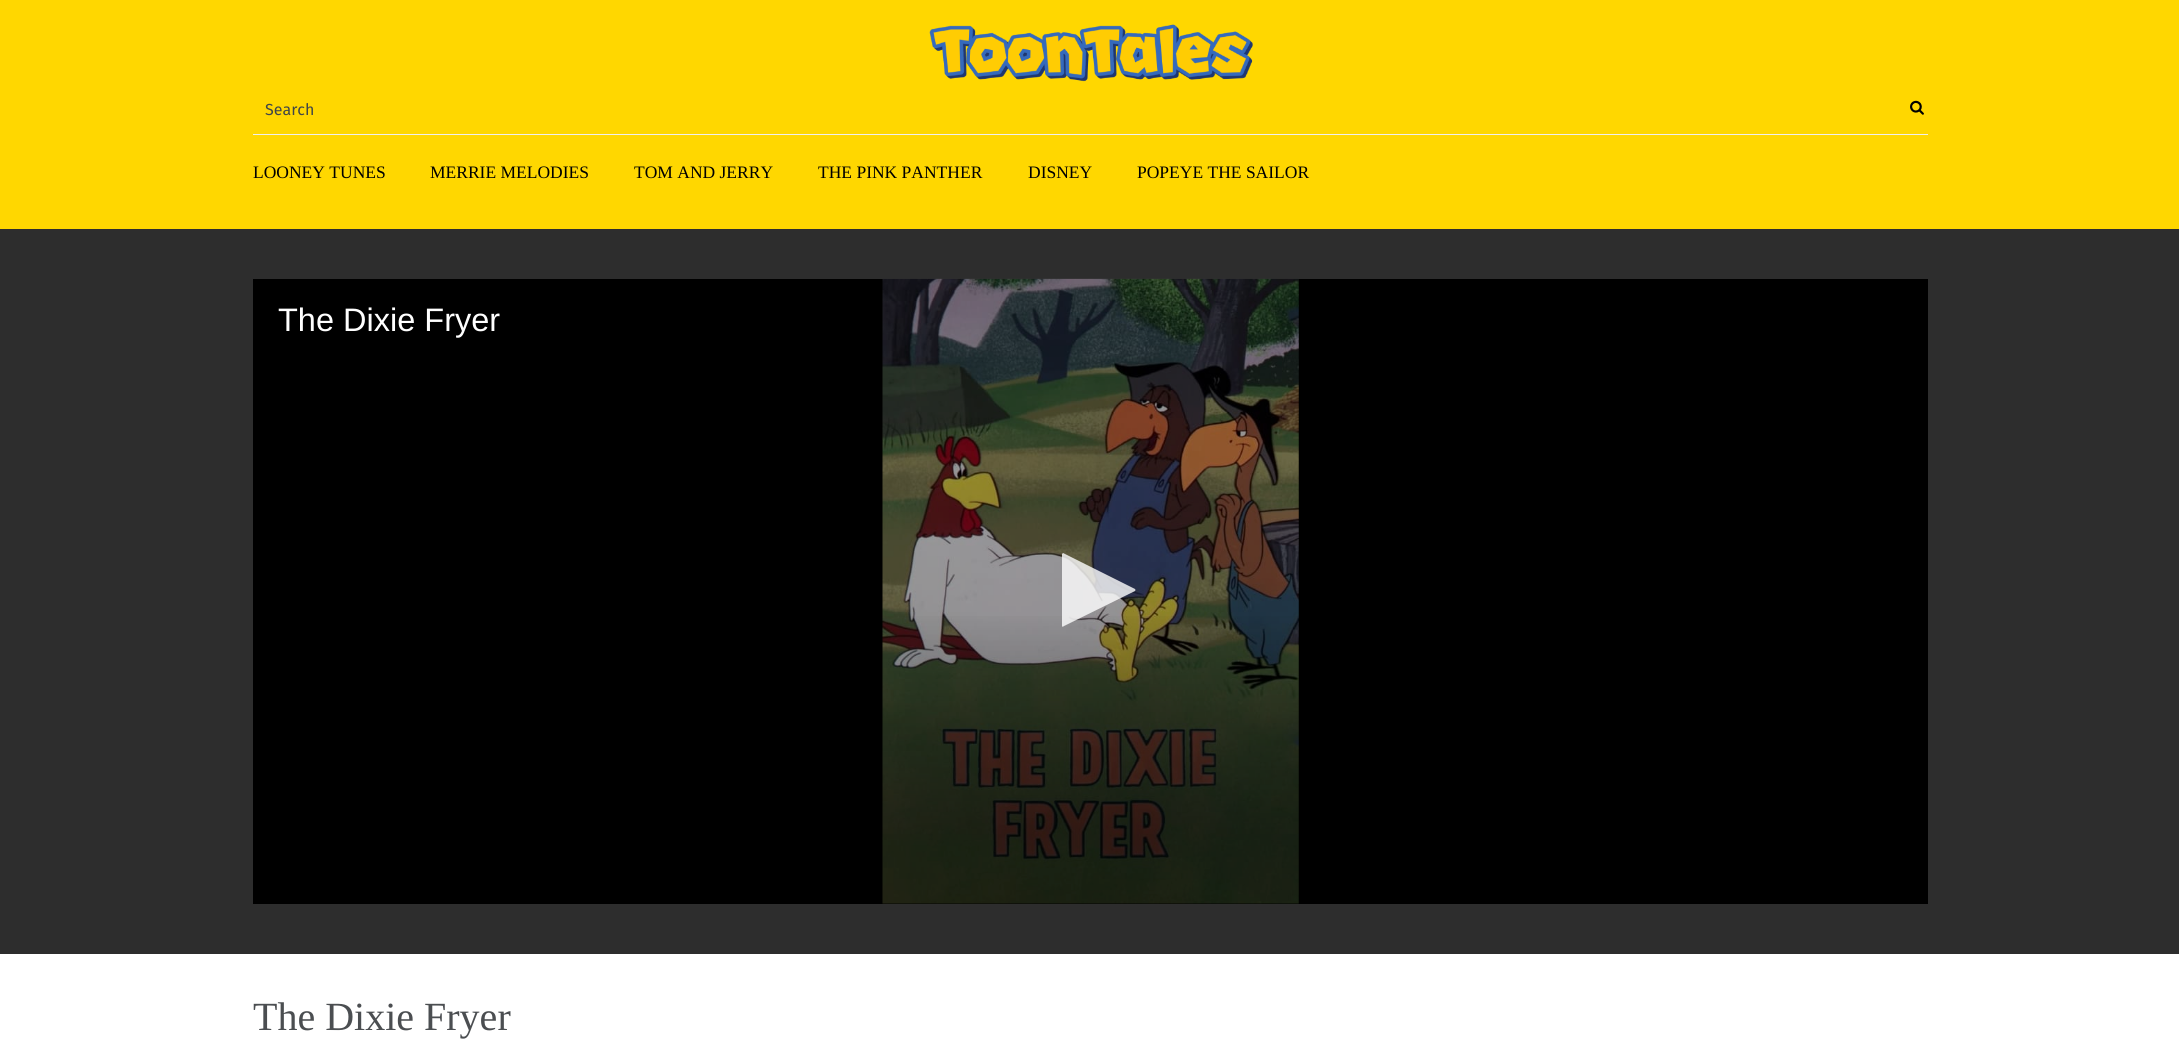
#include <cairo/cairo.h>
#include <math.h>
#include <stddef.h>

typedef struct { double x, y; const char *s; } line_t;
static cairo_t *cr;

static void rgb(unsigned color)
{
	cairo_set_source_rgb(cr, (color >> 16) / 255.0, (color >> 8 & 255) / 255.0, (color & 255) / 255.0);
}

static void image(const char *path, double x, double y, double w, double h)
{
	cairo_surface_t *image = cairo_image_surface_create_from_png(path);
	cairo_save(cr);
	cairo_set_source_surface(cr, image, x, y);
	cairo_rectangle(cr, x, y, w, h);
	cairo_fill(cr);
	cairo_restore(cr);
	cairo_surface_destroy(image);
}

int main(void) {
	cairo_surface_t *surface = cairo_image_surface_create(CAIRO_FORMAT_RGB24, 2179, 1048);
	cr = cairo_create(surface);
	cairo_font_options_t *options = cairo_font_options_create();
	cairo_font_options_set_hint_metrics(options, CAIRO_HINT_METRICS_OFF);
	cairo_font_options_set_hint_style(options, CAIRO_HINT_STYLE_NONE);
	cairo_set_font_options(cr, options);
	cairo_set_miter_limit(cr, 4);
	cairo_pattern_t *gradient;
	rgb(0xffffff);
	cairo_paint(cr);
	rgb(0xffd700);
	cairo_rectangle(cr, 0, 0, 2179, 229);
	cairo_fill(cr);
	image("img/1.png", 929, 24, 324, 58);
	rgb(0xefefef);
	cairo_rectangle(cr, 253, 134, 1675, 1);
	cairo_fill(cr);
	image("img/2.png", 1910, 100, 14, 15);
	rgb(0x2d2d2d);
	cairo_rectangle(cr, 0, 229, 2179, 725);
	cairo_fill(cr);
	rgb(0x000000);
	cairo_rectangle(cr, 253, 279, 1675, 625);
	cairo_fill(cr);
	image("img/3.png", 882, 278, 417, 626);
	gradient = cairo_pattern_create_linear(1090, 604, 1090, 904);
	cairo_pattern_add_color_stop_rgba(gradient, 0, 0, 0, 0, 0);
	cairo_pattern_add_color_stop_rgba(gradient, 0.77, 0, 0, 0, 0.4);
	cairo_pattern_add_color_stop_rgba(gradient, 1, 0, 0, 0, 0.4);
	cairo_set_source(cr, gradient);
	cairo_pattern_destroy(gradient);
	cairo_rectangle(cr, 882, 616, 417, 288);
	cairo_fill(cr);
	cairo_set_source_rgba(cr, 1, 1, 1, 0.8);
	cairo_new_path(cr);
	cairo_move_to(cr, 1064, 626);
	cairo_curve_to(cr, 1063, 627, 1062, 627, 1062, 626);
	cairo_line_to(cr, 1062, 554);
	cairo_line_to(cr, 1063, 553);
	cairo_line_to(cr, 1135, 589);
	cairo_curve_to(cr, 1135, 589, 1136, 590, 1135, 591);
	cairo_close_path(cr);
	cairo_fill(cr);
	cairo_select_font_face(cr, "Fira Sans", CAIRO_FONT_SLANT_NORMAL, CAIRO_FONT_WEIGHT_NORMAL);
	cairo_set_font_size(cr, 16);
	rgb(0x3f4549);
	cairo_move_to(cr, 265, 115);
	cairo_show_text(cr, "Search");
	cairo_select_font_face(cr, "Liberation Serif", CAIRO_FONT_SLANT_NORMAL, CAIRO_FONT_WEIGHT_NORMAL);
	cairo_set_font_size(cr, 17.5);
	rgb(0x000000);
	{
		static const line_t items[] = {
			{253, 178, "LOONEY TUNES"},
			{430, 178, "MERRIE MELODIES"},
			{634, 178, "TOM AND JERRY"},
			{818, 178, "THE PINK PANTHER"},
			{1028, 178, "DISNEY"},
			{1137, 178, "POPEYE THE SAILOR"},
		};
		for (size_t i = 0; i < sizeof items / sizeof *items; i++) {
			cairo_move_to(cr, items[i].x, items[i].y);
			cairo_show_text(cr, items[i].s);
		}
	}
	cairo_select_font_face(cr, "Liberation Sans", CAIRO_FONT_SLANT_NORMAL, CAIRO_FONT_WEIGHT_NORMAL);
	cairo_set_font_size(cr, 32.5);
	rgb(0xffffff);
	cairo_move_to(cr, 278, 331);
	cairo_show_text(cr, "The Dixie Fryer");
	cairo_select_font_face(cr, "Liberation Serif", CAIRO_FONT_SLANT_NORMAL, CAIRO_FONT_WEIGHT_NORMAL);
	cairo_set_font_size(cr, 40);
	rgb(0x4b4e51);
	cairo_move_to(cr, 253, 1030);
	cairo_show_text(cr, "The Dixie Fryer");
	cairo_surface_write_to_png(surface, "page.png");
	cairo_font_options_destroy(options);
	cairo_destroy(cr);
	cairo_surface_destroy(surface);
	return 0;
}
